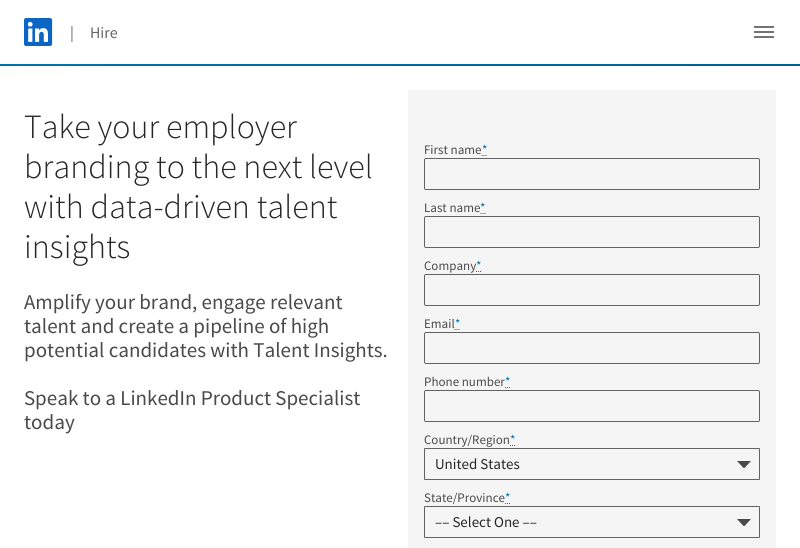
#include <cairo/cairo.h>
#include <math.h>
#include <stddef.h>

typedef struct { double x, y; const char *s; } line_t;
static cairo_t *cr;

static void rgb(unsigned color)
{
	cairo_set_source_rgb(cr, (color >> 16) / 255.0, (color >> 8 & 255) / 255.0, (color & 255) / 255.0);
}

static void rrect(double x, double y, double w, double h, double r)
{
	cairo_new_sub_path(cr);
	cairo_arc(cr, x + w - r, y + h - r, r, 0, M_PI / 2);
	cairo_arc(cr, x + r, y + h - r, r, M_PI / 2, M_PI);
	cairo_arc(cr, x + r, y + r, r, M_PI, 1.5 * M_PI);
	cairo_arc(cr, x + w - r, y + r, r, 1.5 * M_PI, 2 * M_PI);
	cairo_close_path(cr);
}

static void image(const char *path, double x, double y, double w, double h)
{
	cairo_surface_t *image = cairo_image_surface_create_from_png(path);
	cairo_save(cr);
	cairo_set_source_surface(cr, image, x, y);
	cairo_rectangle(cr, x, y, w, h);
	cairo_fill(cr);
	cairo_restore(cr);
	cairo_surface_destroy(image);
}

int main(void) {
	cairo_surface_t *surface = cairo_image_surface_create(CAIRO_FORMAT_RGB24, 800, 548);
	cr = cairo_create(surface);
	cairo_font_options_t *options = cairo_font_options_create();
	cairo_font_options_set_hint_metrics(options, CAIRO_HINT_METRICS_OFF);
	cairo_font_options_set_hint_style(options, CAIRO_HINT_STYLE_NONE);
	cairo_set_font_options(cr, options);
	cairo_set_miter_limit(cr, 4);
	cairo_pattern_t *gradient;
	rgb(0xffffff);
	cairo_paint(cr);
	image("img/1.png", 24, 18, 29, 28);
	image("img/2.png", 754, 26, 20, 12);
	gradient = cairo_pattern_create_linear(0, 65, 800, 65);
	cairo_pattern_add_color_stop_rgba(gradient, 0, 0, 0.451, 0.694, 1);
	cairo_pattern_add_color_stop_rgba(gradient, 1, 0, 0.376, 0.592, 1);
	cairo_set_source(cr, gradient);
	cairo_pattern_destroy(gradient);
	cairo_rectangle(cr, 0, 64, 800, 2);
	cairo_fill(cr);
	rgb(0xf5f5f5);
	cairo_rectangle(cr, 408, 90, 368, 458);
	cairo_fill(cr);
	cairo_new_path(cr);
	cairo_move_to(cr, 481.5, 155.5);
	cairo_line_to(cr, 482.5, 155.5);
	cairo_move_to(cr, 483.5, 155.5);
	cairo_line_to(cr, 484.5, 155.5);
	cairo_move_to(cr, 485.5, 155.5);
	cairo_line_to(cr, 486.5, 155.5);
	rgb(0x0073b1);
	cairo_set_line_width(cr, 1);
	cairo_stroke(cr);
	rrect(424.5, 158.5, 335, 31, 1.5);
	rgb(0x626262);
	cairo_stroke(cr);
	cairo_new_path(cr);
	cairo_move_to(cr, 480.5, 213.5);
	cairo_line_to(cr, 481.5, 213.5);
	cairo_move_to(cr, 482.5, 213.5);
	cairo_line_to(cr, 483.5, 213.5);
	cairo_move_to(cr, 484.5, 213.5);
	cairo_line_to(cr, 485.5, 213.5);
	rgb(0x0073b1);
	cairo_stroke(cr);
	rrect(424.5, 216.5, 335, 31, 1.5);
	rgb(0x626262);
	cairo_stroke(cr);
	rrect(424.5, 274.5, 335, 31, 1.5);
	cairo_stroke(cr);
	cairo_new_path(cr);
	cairo_move_to(cr, 454.5, 329.5);
	cairo_line_to(cr, 455.5, 329.5);
	cairo_move_to(cr, 456.5, 329.5);
	cairo_line_to(cr, 457.5, 329.5);
	cairo_move_to(cr, 458.5, 329.5);
	cairo_line_to(cr, 459.5, 329.5);
	rgb(0x0073b1);
	cairo_stroke(cr);
	rrect(424.5, 332.5, 335, 31, 1.5);
	rgb(0x626262);
	cairo_stroke(cr);
	cairo_new_path(cr);
	cairo_move_to(cr, 505, 387.5);
	cairo_line_to(cr, 506, 387.5);
	cairo_move_to(cr, 507, 387.5);
	cairo_line_to(cr, 508, 387.5);
	cairo_move_to(cr, 509, 387.5);
	cairo_line_to(cr, 510, 387.5);
	rgb(0x0073b1);
	cairo_stroke(cr);
	rrect(424.5, 390.5, 335, 31, 1.5);
	rgb(0x626262);
	cairo_stroke(cr);
	cairo_new_path(cr);
	cairo_move_to(cr, 510, 445.5);
	cairo_line_to(cr, 511, 445.5);
	cairo_move_to(cr, 512, 445.5);
	cairo_line_to(cr, 513, 445.5);
	cairo_move_to(cr, 514, 445.5);
	cairo_line_to(cr, 515, 445.5);
	rgb(0x0073b1);
	cairo_stroke(cr);
	image("img/3.png", 737, 461, 14, 7);
	rrect(424.5, 448.5, 335, 31, 0.5);
	rgb(0x626262);
	cairo_stroke(cr);
	cairo_new_path(cr);
	cairo_move_to(cr, 505, 503.5);
	cairo_line_to(cr, 506, 503.5);
	cairo_move_to(cr, 507, 503.5);
	cairo_line_to(cr, 508, 503.5);
	cairo_move_to(cr, 509, 503.5);
	cairo_line_to(cr, 510, 503.5);
	rgb(0x0073b1);
	cairo_stroke(cr);
	image("img/3.png", 737, 519, 14, 7);
	rrect(424.5, 506.5, 335, 31, 0.5);
	rgb(0x626262);
	cairo_stroke(cr);
	cairo_select_font_face(cr, "Source Sans Pro", CAIRO_FONT_SLANT_NORMAL, CAIRO_FONT_WEIGHT_NORMAL);
	cairo_set_font_size(cr, 16);
	rgb(0x666666);
	cairo_move_to(cr, 70, 38);
	cairo_show_text(cr, "|     Hire");
	cairo_select_font_face(cr, "Source Sans Pro Light", CAIRO_FONT_SLANT_NORMAL, CAIRO_FONT_WEIGHT_NORMAL);
	cairo_set_font_size(cr, 34);
	rgb(0x262626);
	{
		static const line_t items[] = {
			{24, 138, "Take your employer"},
			{24, 178, "branding to the next level"},
			{24, 218, "with data-driven talent"},
			{24, 258, "insights"},
		};
		for (size_t i = 0; i < sizeof items / sizeof *items; i++) {
			cairo_move_to(cr, items[i].x, items[i].y);
			cairo_show_text(cr, items[i].s);
		}
	}
	cairo_select_font_face(cr, "Source Sans Pro", CAIRO_FONT_SLANT_NORMAL, CAIRO_FONT_WEIGHT_NORMAL);
	cairo_set_font_size(cr, 21);
	rgb(0x4a4a4a);
	{
		static const line_t items[] = {
			{24, 309, "Amplify your brand, engage relevant"},
			{24, 333, "talent and create a pipeline of high"},
			{24, 357, "potential candidates with Talent Insights."},
			{24, 405, "Speak to a LinkedIn Product Specialist"},
			{24, 429, "today"},
		};
		for (size_t i = 0; i < sizeof items / sizeof *items; i++) {
			cairo_move_to(cr, items[i].x, items[i].y);
			cairo_show_text(cr, items[i].s);
		}
	}
	cairo_set_font_size(cr, 13);
	cairo_move_to(cr, 424, 154);
	cairo_show_text(cr, "First name");
	rgb(0x0073b1);
	cairo_move_to(cr, 482, 154);
	cairo_show_text(cr, "*");
	rgb(0x4a4a4a);
	cairo_move_to(cr, 424, 212);
	cairo_show_text(cr, "Last name");
	rgb(0x0073b1);
	cairo_move_to(cr, 480, 212);
	cairo_show_text(cr, "*");
	rgb(0x4a4a4a);
	cairo_move_to(cr, 424, 270);
	cairo_show_text(cr, "Company");
	rgb(0x0073b1);
	cairo_move_to(cr, 476, 270);
	cairo_show_text(cr, "*");
	cairo_new_path(cr);
	cairo_move_to(cr, 476, 271.5);
	cairo_line_to(cr, 477, 271.5);
	cairo_move_to(cr, 478, 271.5);
	cairo_line_to(cr, 479, 271.5);
	cairo_move_to(cr, 480, 271.5);
	cairo_line_to(cr, 481, 271.5);
	cairo_stroke(cr);
	rgb(0x4a4a4a);
	cairo_move_to(cr, 424, 328);
	cairo_show_text(cr, "Email");
	rgb(0x0073b1);
	cairo_move_to(cr, 455, 328);
	cairo_show_text(cr, "*");
	rgb(0x4a4a4a);
	cairo_move_to(cr, 424, 386);
	cairo_show_text(cr, "Phone number");
	rgb(0x0073b1);
	cairo_move_to(cr, 505, 386);
	cairo_show_text(cr, "*");
	rgb(0x4a4a4a);
	cairo_move_to(cr, 424, 444);
	cairo_show_text(cr, "Country/Region");
	rgb(0x0073b1);
	cairo_move_to(cr, 510, 444);
	cairo_show_text(cr, "*");
	cairo_set_font_size(cr, 15);
	rgb(0x262626);
	cairo_move_to(cr, 435, 469);
	cairo_show_text(cr, "United States");
	cairo_set_font_size(cr, 13);
	rgb(0x4a4a4a);
	cairo_move_to(cr, 424, 502);
	cairo_show_text(cr, "State/Province");
	rgb(0x0073b1);
	cairo_move_to(cr, 505, 502);
	cairo_show_text(cr, "*");
	cairo_set_font_size(cr, 15);
	rgb(0x262626);
	cairo_move_to(cr, 435, 527);
	cairo_show_text(cr, "–– Select One ––");
	cairo_surface_write_to_png(surface, "page.png");
	cairo_font_options_destroy(options);
	cairo_destroy(cr);
	cairo_surface_destroy(surface);
	return 0;
}
